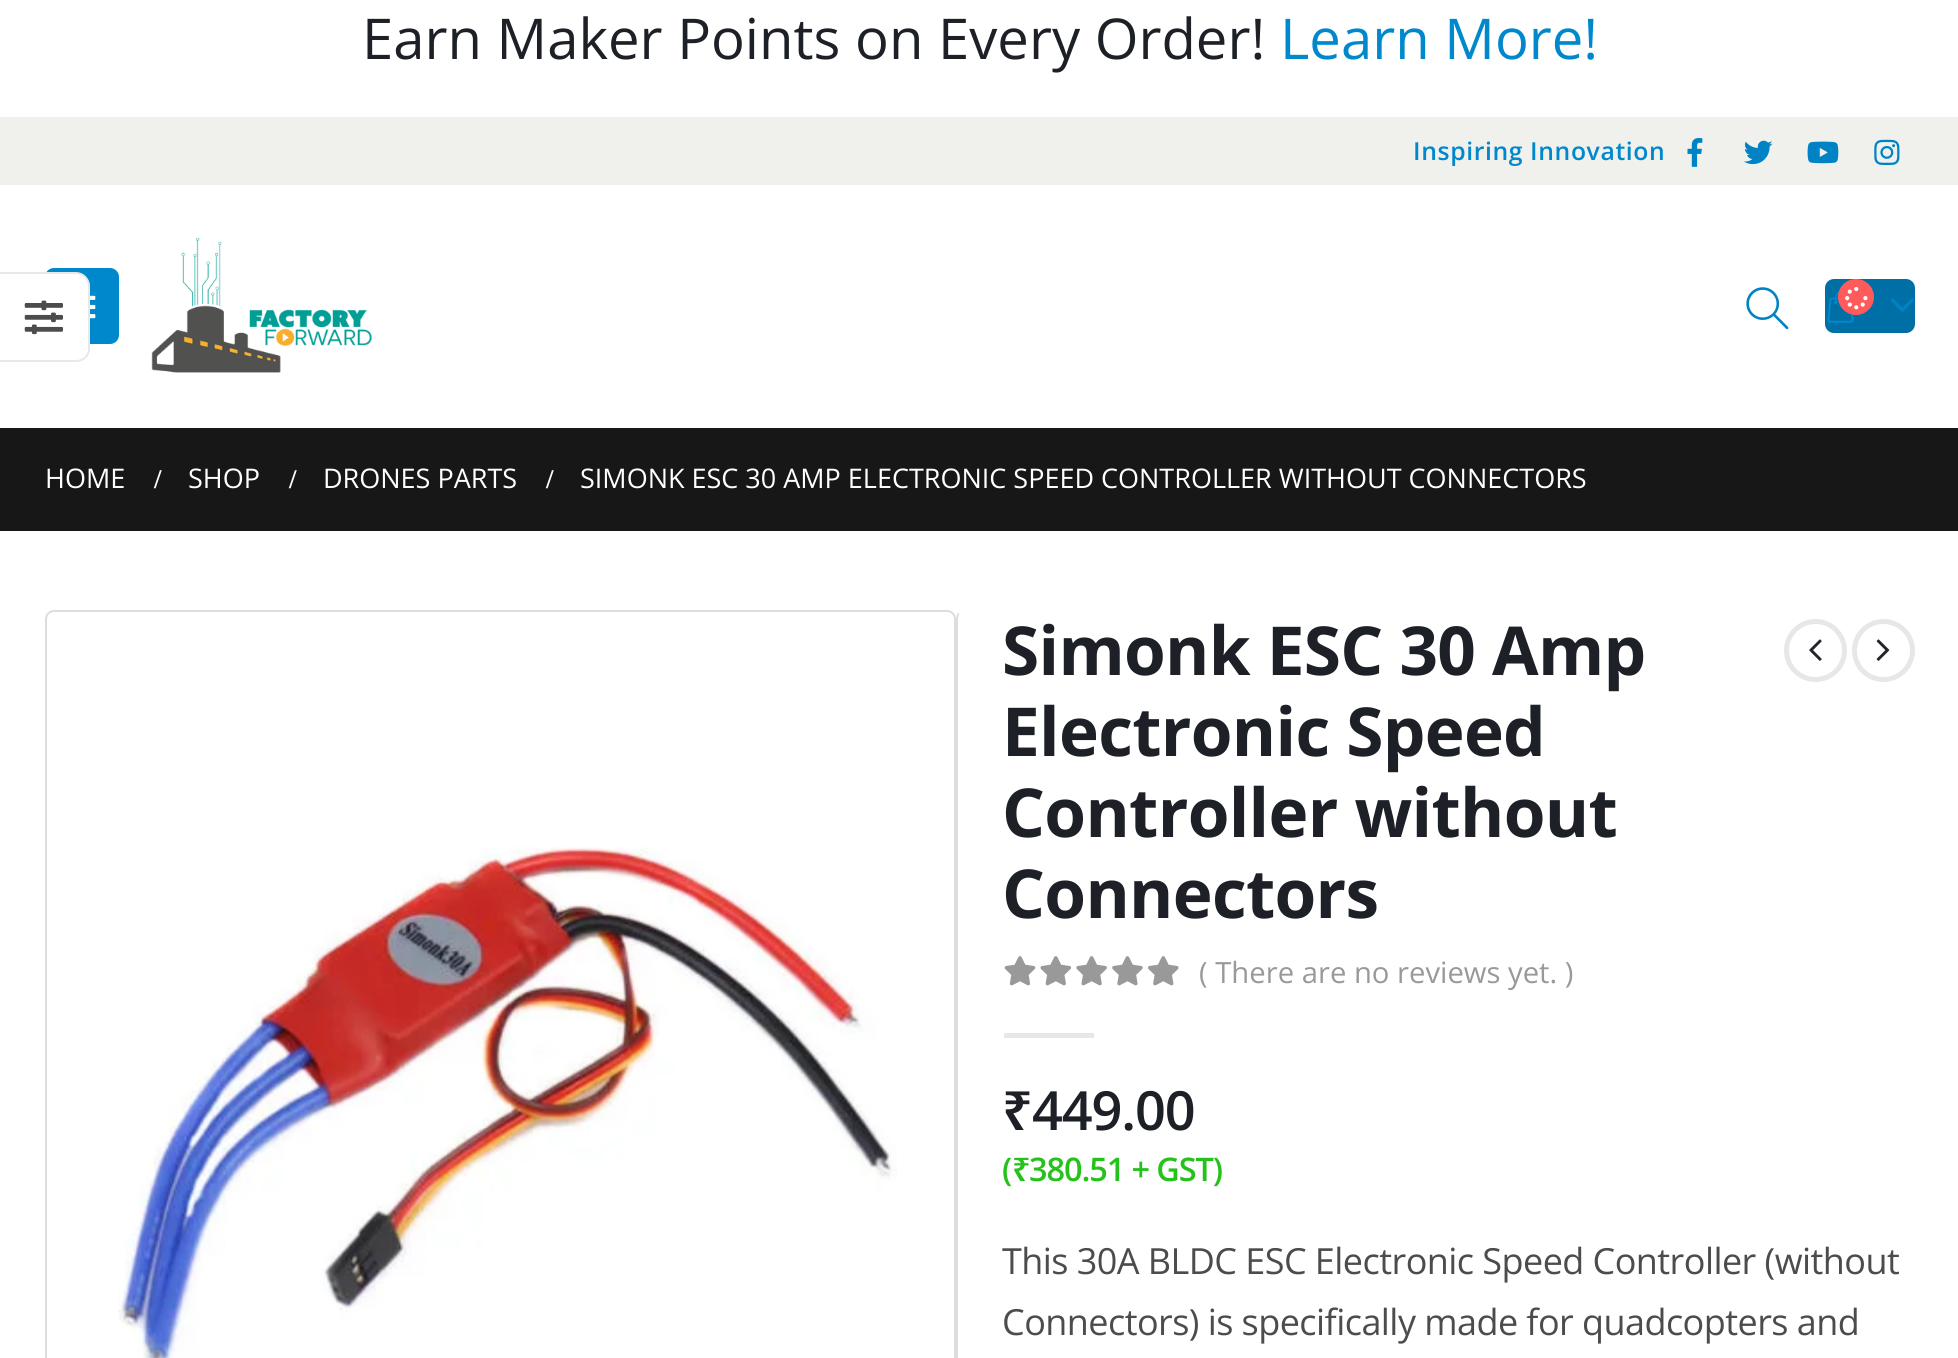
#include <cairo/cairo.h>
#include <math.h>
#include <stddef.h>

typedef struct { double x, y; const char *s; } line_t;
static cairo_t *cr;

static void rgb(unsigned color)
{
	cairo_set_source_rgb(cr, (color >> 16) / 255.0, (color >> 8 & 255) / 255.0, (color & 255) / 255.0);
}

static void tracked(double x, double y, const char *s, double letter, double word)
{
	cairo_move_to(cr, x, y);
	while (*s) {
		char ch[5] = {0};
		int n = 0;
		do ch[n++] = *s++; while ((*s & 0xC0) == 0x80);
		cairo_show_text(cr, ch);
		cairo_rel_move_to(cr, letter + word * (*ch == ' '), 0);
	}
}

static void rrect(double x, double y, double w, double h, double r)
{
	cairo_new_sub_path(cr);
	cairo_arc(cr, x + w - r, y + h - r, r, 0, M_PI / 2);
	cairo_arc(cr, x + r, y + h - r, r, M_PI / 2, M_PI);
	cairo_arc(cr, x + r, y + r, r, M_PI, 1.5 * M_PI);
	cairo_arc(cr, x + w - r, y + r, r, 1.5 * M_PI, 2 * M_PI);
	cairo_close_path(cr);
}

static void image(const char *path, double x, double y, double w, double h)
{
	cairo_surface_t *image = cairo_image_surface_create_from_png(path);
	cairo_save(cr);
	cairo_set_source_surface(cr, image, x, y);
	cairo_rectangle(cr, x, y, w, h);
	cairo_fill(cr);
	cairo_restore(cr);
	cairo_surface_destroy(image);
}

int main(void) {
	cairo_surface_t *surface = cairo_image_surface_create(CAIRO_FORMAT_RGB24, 1958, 1358);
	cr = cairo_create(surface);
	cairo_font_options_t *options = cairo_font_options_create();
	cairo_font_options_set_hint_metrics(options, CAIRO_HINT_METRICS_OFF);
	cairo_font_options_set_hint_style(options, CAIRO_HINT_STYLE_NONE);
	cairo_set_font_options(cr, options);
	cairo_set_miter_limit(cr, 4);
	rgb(0xffffff);
	cairo_paint(cr);
	rgb(0xf0f0ed);
	cairo_rectangle(cr, 0, 117, 1958, 68);
	cairo_fill(cr);
	image("img/1.png", 1687, 138, 16, 29);
	image("img/2.png", 1744, 140, 29, 25);
	image("img/3.png", 1807, 141, 32, 23);
	image("img/4.png", 1874, 139, 26, 26);
	rgb(0x0088cc);
	rrect(45, 268, 74, 76, 9);
	cairo_fill(cr);
	image("img/5.png", 90, 295, 6, 24);
	image("img/6.png", 151, 238, 221, 135);
	image("img/7.png", 1746, 287, 43, 43);
	rgb(0x006fa6);
	rrect(1825, 279, 90, 54, 9);
	cairo_fill(cr);
	image("img/9.png", 1827, 292, 27, 31);
	rgb(0xff5b5b);
	cairo_arc(cr, 1856, 297, 18, 0, 2 * M_PI);
	cairo_fill(cr);
	image("img/8.png", 1845, 286, 23, 24);
	image("img/10.png", 1890, 298, 24, 14);
	rgb(0x171717);
	cairo_rectangle(cr, 0, 428, 1958, 103);
	cairo_fill(cr);
	rgb(0xffffff);
	cairo_new_path(cr);
	cairo_move_to(cr, 0, 272);
	cairo_line_to(cr, 76, 272);
	cairo_curve_to(cr, 83.5, 272, 90, 278.5, 90, 286);
	cairo_line_to(cr, 90, 348);
	cairo_curve_to(cr, 90, 355.5, 83.5, 362, 76, 362);
	cairo_line_to(cr, 0, 362);
	cairo_close_path(cr);
	cairo_fill(cr);
	cairo_set_source_rgba(cr, 0, 0, 0, 0.09);
	cairo_set_fill_rule(cr, CAIRO_FILL_RULE_EVEN_ODD);
	cairo_new_path(cr);
	cairo_move_to(cr, 0, 272);
	cairo_line_to(cr, 76, 272);
	cairo_curve_to(cr, 84, 272, 90, 278, 90, 286);
	cairo_line_to(cr, 90, 349);
	cairo_curve_to(cr, 90, 356, 84, 362, 76, 362);
	cairo_line_to(cr, 0, 362);
	cairo_close_path(cr);
	cairo_move_to(cr, 0, 274);
	cairo_line_to(cr, 76, 274);
	cairo_curve_to(cr, 83, 274, 88, 280, 88, 286);
	cairo_line_to(cr, 88, 349);
	cairo_curve_to(cr, 88, 355, 83, 360, 76, 360);
	cairo_line_to(cr, 0, 360);
	cairo_close_path(cr);
	cairo_fill(cr);
	image("img/11.png", 24, 300, 39, 35);
	rrect(46, 611, 909, 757, 8);
	rgb(0xdddddd);
	cairo_stroke(cr);
	image("img/12.png", 118, 847, 779, 511);
	image("img/15.png", 1004, 956, 175, 30);
	rgb(0xe7e7e7);
	cairo_rectangle(cr, 1004, 1033, 90, 5);
	cairo_fill(cr);
	cairo_select_font_face(cr, "Open Sans", CAIRO_FONT_SLANT_NORMAL, CAIRO_FONT_WEIGHT_NORMAL);
	cairo_set_font_size(cr, 56.25);
	rgb(0x1d2127);
	cairo_move_to(cr, 362, 59);
	cairo_show_text(cr, "Earn Maker Points on Every Order!");
	rgb(0x0088cc);
	cairo_move_to(cr, 1280, 59);
	cairo_show_text(cr, "Learn More!");
	cairo_select_font_face(cr, "Open Sans SemiBold", CAIRO_FONT_SLANT_NORMAL, CAIRO_FONT_WEIGHT_NORMAL);
	cairo_set_font_size(cr, 24.75);
	tracked(1413, 160, "Inspiring Innovation", 0.6, 0);
	cairo_select_font_face(cr, "Open Sans", CAIRO_FONT_SLANT_NORMAL, CAIRO_FONT_WEIGHT_NORMAL);
	cairo_set_font_size(cr, 27);
	rgb(0xffffff);
	cairo_move_to(cr, 45, 488);
	cairo_show_text(cr, "HOME");
	cairo_select_font_face(cr, "Liberation Serif", CAIRO_FONT_SLANT_NORMAL, CAIRO_FONT_WEIGHT_BOLD);
	cairo_move_to(cr, 154, 488);
	cairo_show_text(cr, "/");
	cairo_select_font_face(cr, "Open Sans", CAIRO_FONT_SLANT_NORMAL, CAIRO_FONT_WEIGHT_NORMAL);
	cairo_move_to(cr, 188, 488);
	cairo_show_text(cr, "SHOP");
	cairo_select_font_face(cr, "Liberation Serif", CAIRO_FONT_SLANT_NORMAL, CAIRO_FONT_WEIGHT_BOLD);
	cairo_move_to(cr, 289, 488);
	cairo_show_text(cr, "/");
	cairo_select_font_face(cr, "Open Sans", CAIRO_FONT_SLANT_NORMAL, CAIRO_FONT_WEIGHT_NORMAL);
	cairo_move_to(cr, 323, 488);
	cairo_show_text(cr, "DRONES PARTS");
	cairo_select_font_face(cr, "Liberation Serif", CAIRO_FONT_SLANT_NORMAL, CAIRO_FONT_WEIGHT_BOLD);
	cairo_move_to(cr, 546, 488);
	cairo_show_text(cr, "/");
	cairo_select_font_face(cr, "Open Sans", CAIRO_FONT_SLANT_NORMAL, CAIRO_FONT_WEIGHT_NORMAL);
	cairo_move_to(cr, 580, 488);
	cairo_show_text(cr, "SIMONK ESC 30 AMP ELECTRONIC SPEED CONTROLLER WITHOUT CONNECTORS");
	cairo_select_font_face(cr, "Open Sans", CAIRO_FONT_SLANT_NORMAL, CAIRO_FONT_WEIGHT_BOLD);
	cairo_set_font_size(cr, 67.5);
	rgb(0x1d2127);
	{
		static const line_t items[] = {
			{1002, 675, "Simonk ESC 30 Amp"},
			{1002, 756, "Electronic Speed"},
			{1002, 837, "Controller without"},
			{1002, 918, "Connectors"},
		};
		for (size_t i = 0; i < sizeof items / sizeof *items; i++) {
			tracked(items[i].x, items[i].y, items[i].s, -0.7, 0);
		}
	}
	cairo_select_font_face(cr, "Open Sans", CAIRO_FONT_SLANT_NORMAL, CAIRO_FONT_WEIGHT_NORMAL);
	cairo_set_font_size(cr, 29.25);
	rgb(0x999999);
	cairo_move_to(cr, 1199, 983);
	cairo_show_text(cr, "( There are no reviews yet. )");
	cairo_select_font_face(cr, "Noto Sans SemiBold", CAIRO_FONT_SLANT_NORMAL, CAIRO_FONT_WEIGHT_NORMAL);
	cairo_set_font_size(cr, 54);
	rgb(0x1d2127);
	tracked(1002, 1130, "₹", -1.1, 0);
	cairo_select_font_face(cr, "Open Sans SemiBold", CAIRO_FONT_SLANT_NORMAL, CAIRO_FONT_WEIGHT_NORMAL);
	tracked(1032, 1130, "449.00", -1.1, 0);
	cairo_set_font_size(cr, 32.5);
	rgb(0x26c21c);
	tracked(1002, 1181, "(", -1.1, 0);
	cairo_select_font_face(cr, "Noto Sans SemiBold", CAIRO_FONT_SLANT_NORMAL, CAIRO_FONT_WEIGHT_NORMAL);
	tracked(1012, 1181, "₹", -1.1, 0);
	cairo_select_font_face(cr, "Open Sans SemiBold", CAIRO_FONT_SLANT_NORMAL, CAIRO_FONT_WEIGHT_NORMAL);
	tracked(1029, 1181, "380.51 + GST)", -1.1, 0);
	cairo_select_font_face(cr, "Open Sans", CAIRO_FONT_SLANT_NORMAL, CAIRO_FONT_WEIGHT_NORMAL);
	cairo_set_font_size(cr, 36);
	rgb(0x4c4c4c);
	tracked(1002, 1274, "This 30A BLDC ESC Electronic Speed Controller (without", -0.55, 0);
	cairo_save(cr);
	cairo_set_fill_rule(cr, CAIRO_FILL_RULE_WINDING);
	cairo_rectangle(cr, 45, 610, 914, 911);
	cairo_clip(cr);
	rrect(957, 611, 907, 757, 8);
	rgb(0xdddddd);
	cairo_stroke(cr);
	cairo_restore(cr);
	cairo_arc(cr, 1883.5, 650.5, 29, 0, 2 * M_PI);
	rgb(0xe7e7e7);
	cairo_set_line_width(cr, 5);
	cairo_stroke(cr);
	image("img/14.png", 1876, 639, 14, 22);
	cairo_arc(cr, 1815.5, 650.5, 29, 0, 2 * M_PI);
	cairo_stroke(cr);
	image("img/13.png", 1809, 639, 13, 22);
	rgb(0x4c4c4c);
	tracked(1002, 1335, "Connectors) is specifically made for quadcopters and", -0.55, 0);
	cairo_surface_write_to_png(surface, "page.png");
	cairo_font_options_destroy(options);
	cairo_destroy(cr);
	cairo_surface_destroy(surface);
	return 0;
}
